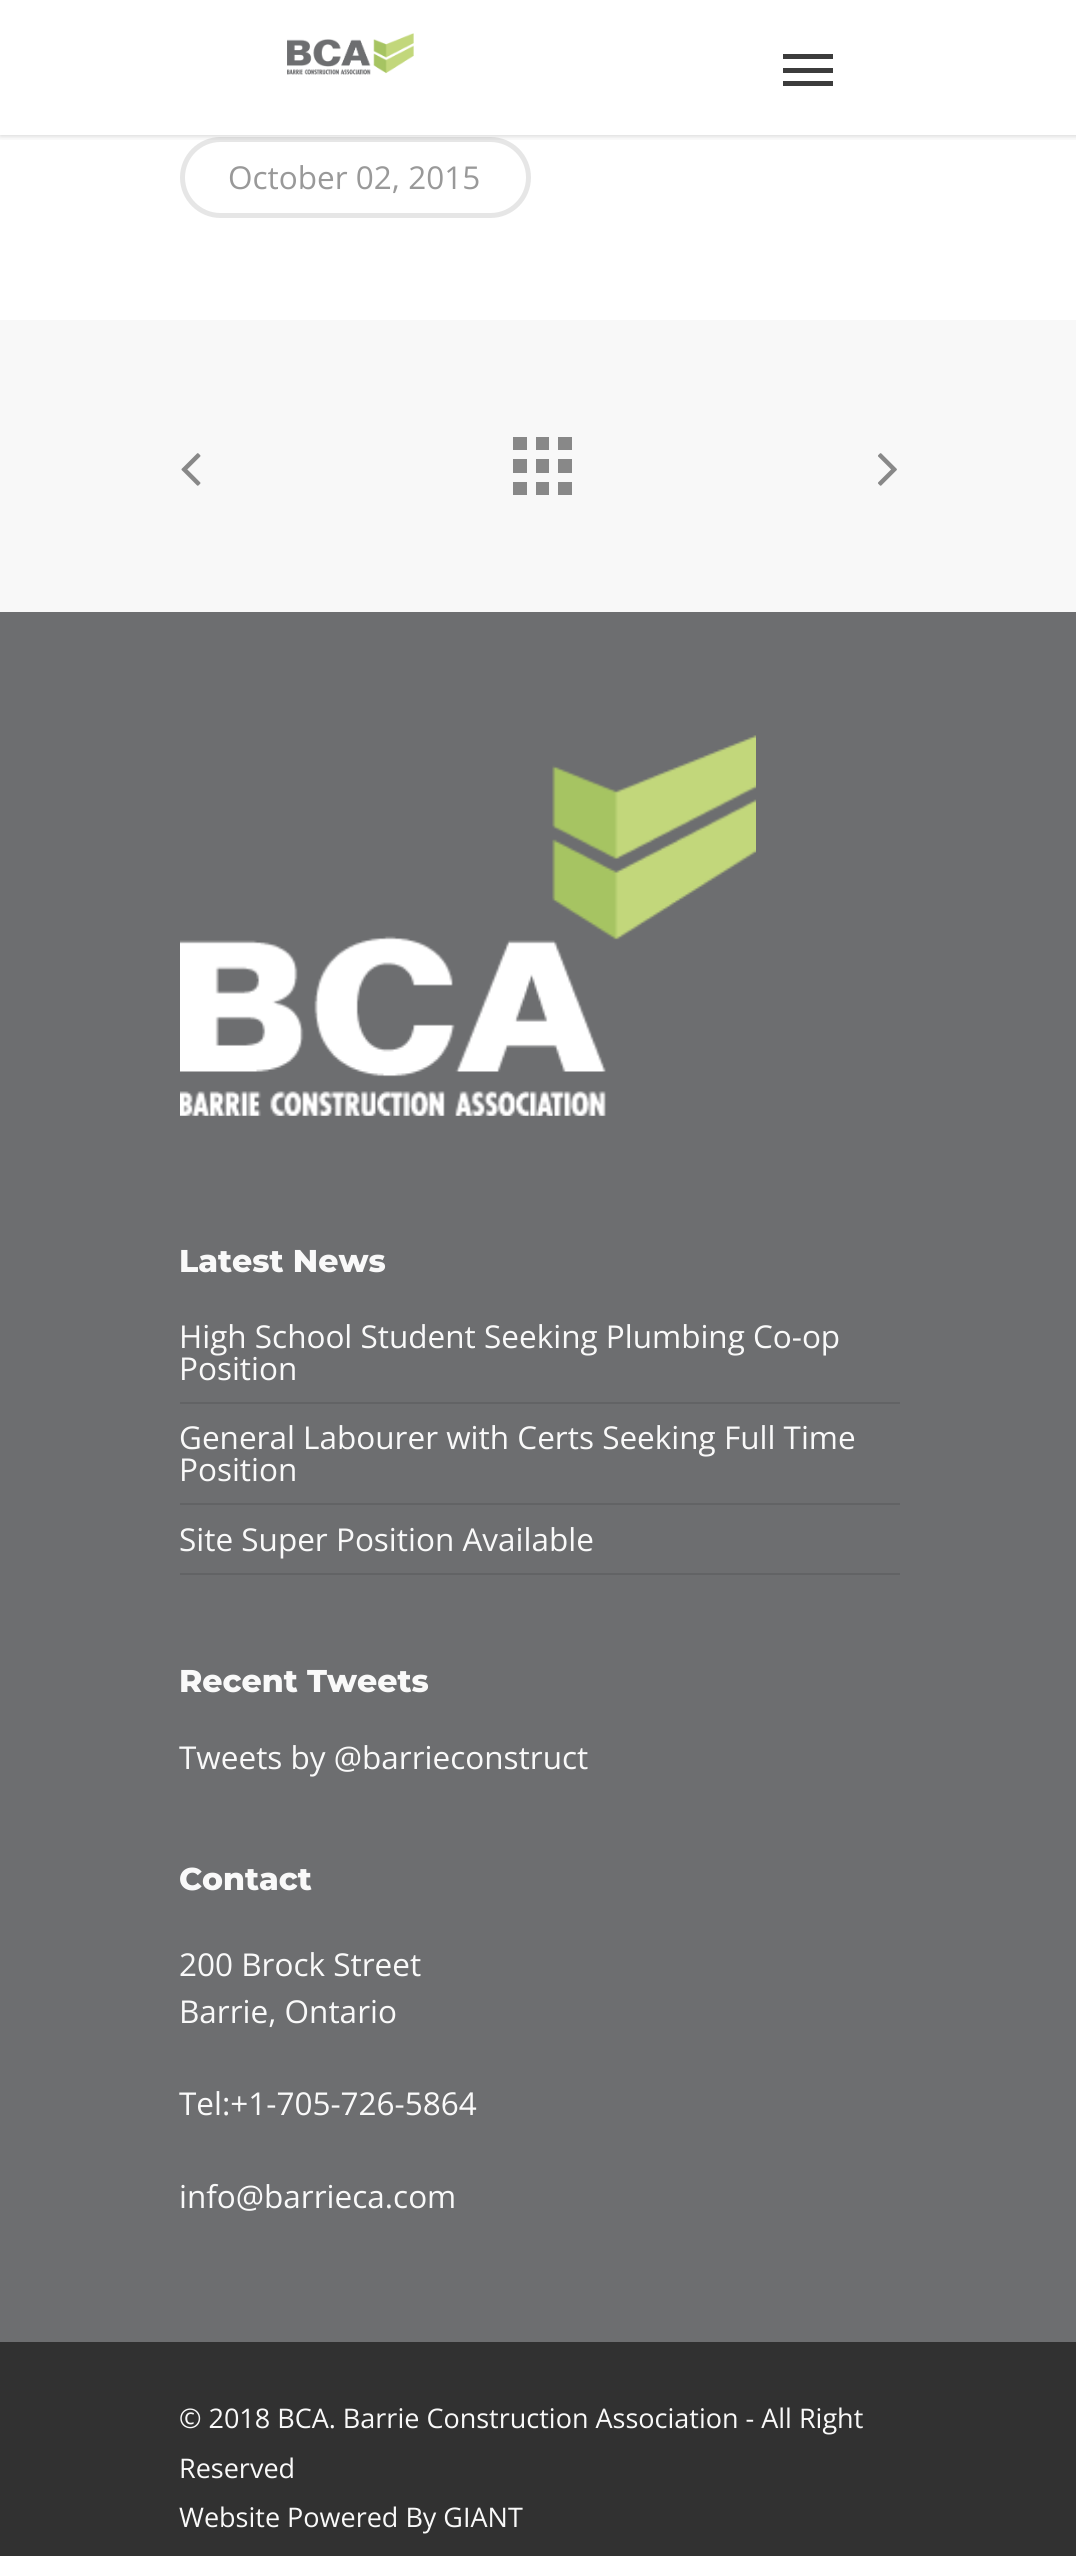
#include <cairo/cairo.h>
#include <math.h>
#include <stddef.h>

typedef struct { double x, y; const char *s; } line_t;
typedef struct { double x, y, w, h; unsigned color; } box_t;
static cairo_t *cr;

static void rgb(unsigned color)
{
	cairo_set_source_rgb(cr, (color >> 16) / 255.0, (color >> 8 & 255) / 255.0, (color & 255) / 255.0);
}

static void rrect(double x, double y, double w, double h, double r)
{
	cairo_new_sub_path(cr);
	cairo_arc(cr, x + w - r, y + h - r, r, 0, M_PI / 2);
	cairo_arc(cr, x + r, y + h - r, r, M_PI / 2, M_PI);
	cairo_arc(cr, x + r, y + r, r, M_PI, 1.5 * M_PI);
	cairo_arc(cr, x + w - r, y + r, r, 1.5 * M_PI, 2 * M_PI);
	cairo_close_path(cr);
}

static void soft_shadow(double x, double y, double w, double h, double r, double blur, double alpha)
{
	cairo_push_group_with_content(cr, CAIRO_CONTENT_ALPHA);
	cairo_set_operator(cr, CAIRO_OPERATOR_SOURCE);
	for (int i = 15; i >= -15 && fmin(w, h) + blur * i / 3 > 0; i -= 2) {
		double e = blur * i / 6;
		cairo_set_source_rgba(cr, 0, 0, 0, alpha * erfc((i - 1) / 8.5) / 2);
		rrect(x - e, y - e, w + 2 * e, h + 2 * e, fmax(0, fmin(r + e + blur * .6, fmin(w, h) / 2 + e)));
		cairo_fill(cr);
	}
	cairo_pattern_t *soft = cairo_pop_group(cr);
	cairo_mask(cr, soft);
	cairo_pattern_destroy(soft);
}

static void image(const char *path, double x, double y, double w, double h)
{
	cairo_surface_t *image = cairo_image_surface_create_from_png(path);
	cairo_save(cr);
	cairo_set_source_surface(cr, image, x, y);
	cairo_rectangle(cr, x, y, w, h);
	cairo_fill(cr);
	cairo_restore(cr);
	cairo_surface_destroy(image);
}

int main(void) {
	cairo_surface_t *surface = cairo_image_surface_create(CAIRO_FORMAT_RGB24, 1076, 2556);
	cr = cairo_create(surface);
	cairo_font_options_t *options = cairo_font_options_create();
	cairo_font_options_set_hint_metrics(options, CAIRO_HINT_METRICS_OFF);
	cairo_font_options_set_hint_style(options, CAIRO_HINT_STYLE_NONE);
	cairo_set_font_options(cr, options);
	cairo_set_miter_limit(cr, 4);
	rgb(0xffffff);
	cairo_paint(cr);
	rrect(182.5, 139.5, 346, 76, 38);
	rgb(0xe6e6e6);
	cairo_set_line_width(cr, 5);
	cairo_stroke(cr);
	cairo_save(cr);
	cairo_rectangle(cr, 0, 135, 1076, 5);
	cairo_clip(cr);
	rgb(0x000000);
	soft_shadow(0, 0, 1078, 135, 0, 3.5, 0.22);
	cairo_restore(cr);
	image("img/1.png", 287, 33, 127, 42);
	{
		static const box_t items[] = {
			{783, 54, 50, 5, 0x3c3c3c},
			{783, 81, 50, 5, 0x3c3c3c},
			{783, 68, 50, 5, 0x3c3c3c},
			{0, 320, 1076, 292, 0xf8f8f8},
			{558, 482, 14, 13, 0x888888},
			{536, 482, 13, 13, 0x888888},
			{513, 437, 14, 13, 0x888888},
			{536, 437, 13, 13, 0x888888},
			{558, 437, 14, 13, 0x888888},
			{558, 459, 14, 14, 0x888888},
			{513, 482, 14, 13, 0x888888},
			{513, 459, 14, 14, 0x888888},
			{536, 459, 13, 14, 0x888888},
		};
		for (size_t i = 0; i < sizeof items / sizeof *items; i++) {
			rgb(items[i].color);
			cairo_rectangle(cr, items[i].x, items[i].y, items[i].w, items[i].h);
			cairo_fill(cr);
		}
	}
	image("img/2.png", 181, 453, 20, 33);
	image("img/3.png", 878, 453, 19, 33);
	rgb(0x6d6e70);
	cairo_rectangle(cr, 0, 612, 1076, 1730);
	cairo_fill(cr);
	image("img/4.png", 180, 735, 576, 381);
	{
		static const box_t items[] = {
			{180, 1402, 720, 2, 0x626365},
			{180, 1503, 720, 2, 0x626365},
			{180, 1573, 720, 2, 0x626365},
			{0, 2342, 1076, 214, 0x313131},
		};
		for (size_t i = 0; i < sizeof items / sizeof *items; i++) {
			rgb(items[i].color);
			cairo_rectangle(cr, items[i].x, items[i].y, items[i].w, items[i].h);
			cairo_fill(cr);
		}
	}
	cairo_select_font_face(cr, "Open Sans", CAIRO_FONT_SLANT_NORMAL, CAIRO_FONT_WEIGHT_NORMAL);
	cairo_set_font_size(cr, 31.5);
	rgb(0x999999);
	cairo_move_to(cr, 228, 189);
	cairo_show_text(cr, "October 02, 2015");
	cairo_select_font_face(cr, "Montserrat ExtraBold", CAIRO_FONT_SLANT_NORMAL, CAIRO_FONT_WEIGHT_NORMAL);
	rgb(0xf9f9f9);
	cairo_move_to(cr, 179, 1272);
	cairo_show_text(cr, "Latest News");
	cairo_select_font_face(cr, "Open Sans", CAIRO_FONT_SLANT_NORMAL, CAIRO_FONT_WEIGHT_NORMAL);
	{
		static const line_t items[] = {
			{179, 1348, "High School Student Seeking Plumbing Co-op"},
			{179, 1380, "Position"},
			{179, 1449, "General Labourer with Certs Seeking Full Time"},
			{179, 1481, "Position"},
			{179, 1551, "Site Super Position Available"},
		};
		for (size_t i = 0; i < sizeof items / sizeof *items; i++) {
			cairo_move_to(cr, items[i].x, items[i].y);
			cairo_show_text(cr, items[i].s);
		}
	}
	cairo_select_font_face(cr, "Montserrat ExtraBold", CAIRO_FONT_SLANT_NORMAL, CAIRO_FONT_WEIGHT_NORMAL);
	cairo_move_to(cr, 179, 1692);
	cairo_show_text(cr, "Recent Tweets");
	cairo_select_font_face(cr, "Open Sans", CAIRO_FONT_SLANT_NORMAL, CAIRO_FONT_WEIGHT_NORMAL);
	cairo_move_to(cr, 179, 1769);
	cairo_show_text(cr, "Tweets by @barrieconstruct");
	cairo_select_font_face(cr, "Montserrat ExtraBold", CAIRO_FONT_SLANT_NORMAL, CAIRO_FONT_WEIGHT_NORMAL);
	cairo_move_to(cr, 179, 1890);
	cairo_show_text(cr, "Contact");
	cairo_select_font_face(cr, "Open Sans", CAIRO_FONT_SLANT_NORMAL, CAIRO_FONT_WEIGHT_NORMAL);
	{
		static const line_t items[] = {
			{179, 1976, "200 Brock Street"},
			{179, 2023, "Barrie, Ontario"},
			{179, 2115, "Tel:+1-705-726-5864"},
			{179, 2208, "info@barrieca.com"},
		};
		for (size_t i = 0; i < sizeof items / sizeof *items; i++) {
			cairo_move_to(cr, items[i].x, items[i].y);
			cairo_show_text(cr, items[i].s);
		}
	}
	cairo_set_font_size(cr, 27);
	{
		static const line_t items[] = {
			{179, 2428, "© 2018 BCA. Barrie Construction Association - All Right"},
			{179, 2478, "Reserved"},
			{179, 2527, "Website Powered By GIANT"},
		};
		for (size_t i = 0; i < sizeof items / sizeof *items; i++) {
			cairo_move_to(cr, items[i].x, items[i].y);
			cairo_show_text(cr, items[i].s);
		}
	}
	cairo_surface_write_to_png(surface, "page.png");
	cairo_font_options_destroy(options);
	cairo_destroy(cr);
	cairo_surface_destroy(surface);
	return 0;
}
